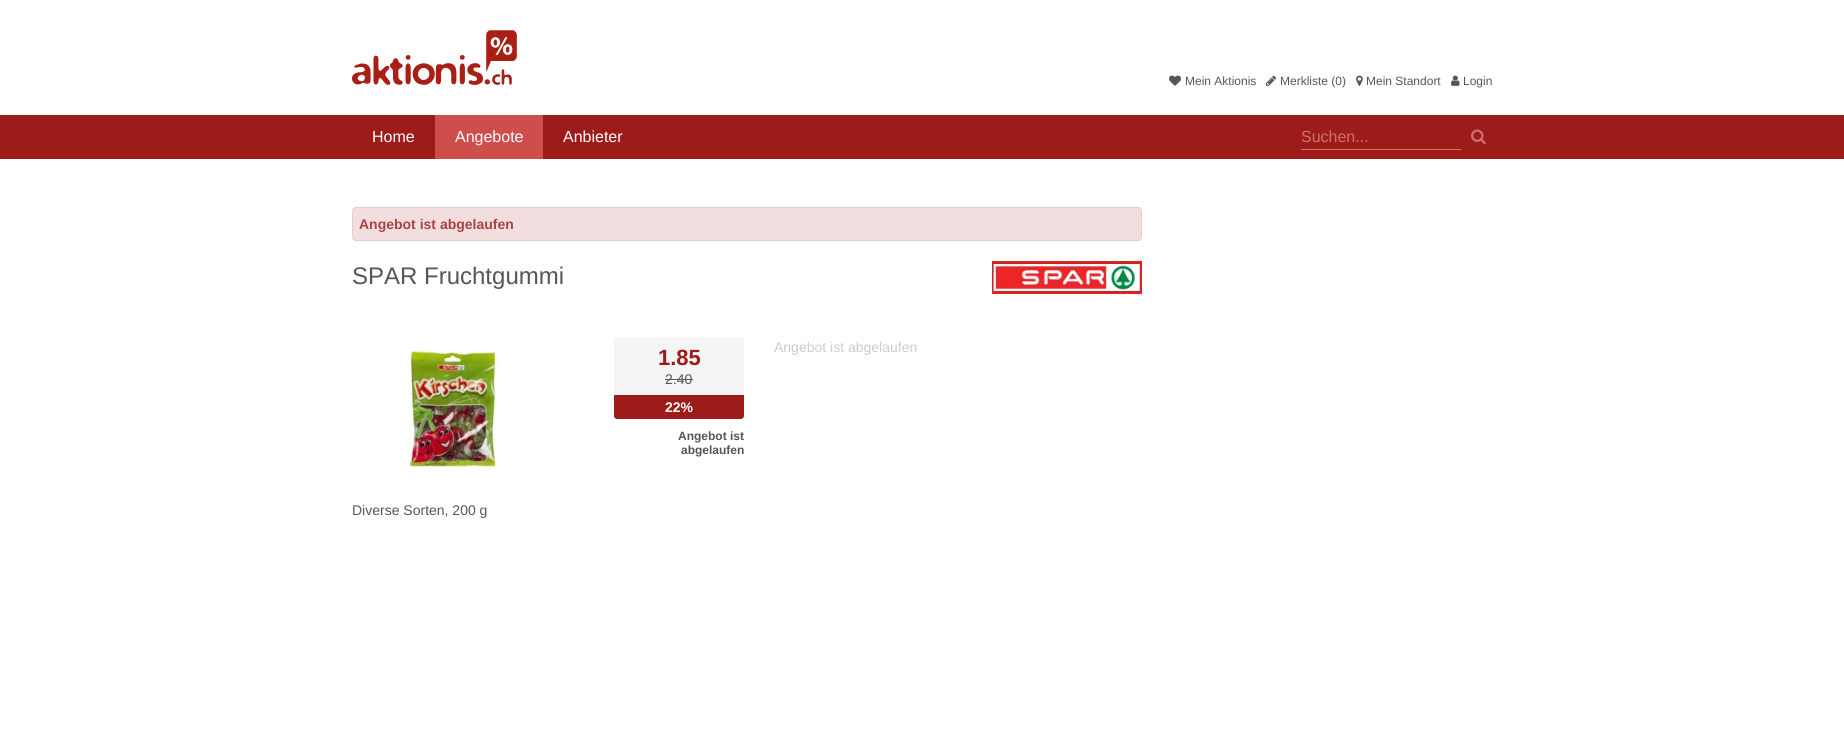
#include <cairo/cairo.h>
#include <math.h>
#include <stddef.h>

typedef struct { double x, y; const char *s; } line_t;
typedef struct { double x, y, w, h; unsigned color; } box_t;
static cairo_t *cr;

static void rgb(unsigned color)
{
	cairo_set_source_rgb(cr, (color >> 16) / 255.0, (color >> 8 & 255) / 255.0, (color & 255) / 255.0);
}

static void rrect(double x, double y, double w, double h, double r)
{
	cairo_new_sub_path(cr);
	cairo_arc(cr, x + w - r, y + h - r, r, 0, M_PI / 2);
	cairo_arc(cr, x + r, y + h - r, r, M_PI / 2, M_PI);
	cairo_arc(cr, x + r, y + r, r, M_PI, 1.5 * M_PI);
	cairo_arc(cr, x + w - r, y + r, r, 1.5 * M_PI, 2 * M_PI);
	cairo_close_path(cr);
}

static void image(const char *path, double x, double y, double w, double h)
{
	cairo_surface_t *image = cairo_image_surface_create_from_png(path);
	cairo_save(cr);
	cairo_set_source_surface(cr, image, x, y);
	cairo_rectangle(cr, x, y, w, h);
	cairo_fill(cr);
	cairo_restore(cr);
	cairo_surface_destroy(image);
}

int main(void) {
	cairo_surface_t *surface = cairo_image_surface_create(CAIRO_FORMAT_RGB24, 1844, 732);
	cr = cairo_create(surface);
	cairo_font_options_t *options = cairo_font_options_create();
	cairo_font_options_set_hint_metrics(options, CAIRO_HINT_METRICS_OFF);
	cairo_font_options_set_hint_style(options, CAIRO_HINT_STYLE_NONE);
	cairo_set_font_options(cr, options);
	cairo_set_miter_limit(cr, 4);
	rgb(0xffffff);
	cairo_paint(cr);
	image("img/1.png", 352, 30, 165, 55);
	image("img/2.png", 1169, 75, 12, 11);
	image("img/3.png", 1266, 75, 11, 11);
	image("img/4.png", 1356, 75, 7, 11);
	image("img/5.png", 1451, 75, 9, 11);
	{
		static const box_t items[] = {
			{0, 115, 1844, 44, 0x9d1b19},
			{435, 115, 108, 44, 0xce4e4b},
			{1301, 149, 160, 1, 0xce716e},
		};
		for (size_t i = 0; i < sizeof items / sizeof *items; i++) {
			rgb(items[i].color);
			cairo_rectangle(cr, items[i].x, items[i].y, items[i].w, items[i].h);
			cairo_fill(cr);
		}
	}
	image("img/6.png", 1471, 129, 15, 16);
	rgb(0xf2dede);
	rrect(352.5, 207.5, 789, 33, 3.5);
	cairo_fill_preserve(cr);
	rgb(0xebccd1);
	cairo_set_line_width(cr, 1);
	cairo_stroke(cr);
	image("img/7.png", 992, 261, 150, 33);
	rgb(0xf5f5f5);
	cairo_new_path(cr);
	cairo_move_to(cr, 617, 337);
	cairo_line_to(cr, 741, 337);
	cairo_curve_to(cr, 742.5, 337, 744, 338.5, 744, 340);
	cairo_line_to(cr, 744, 371);
	cairo_line_to(cr, 614, 371);
	cairo_line_to(cr, 614, 340);
	cairo_curve_to(cr, 614, 338.5, 615.5, 337, 617, 337);
	cairo_close_path(cr);
	cairo_fill(cr);
	cairo_rectangle(cr, 614, 371, 130, 24);
	cairo_fill(cr);
	rgb(0x565656);
	cairo_rectangle(cr, 665, 379, 28, 1);
	cairo_fill(cr);
	rgb(0x9d1b19);
	cairo_new_path(cr);
	cairo_move_to(cr, 614, 395);
	cairo_line_to(cr, 744, 395);
	cairo_line_to(cr, 744, 416);
	cairo_curve_to(cr, 744, 417.5, 742.5, 419, 741, 419);
	cairo_line_to(cr, 617, 419);
	cairo_curve_to(cr, 615.5, 419, 614, 417.5, 614, 416);
	cairo_close_path(cr);
	cairo_fill(cr);
	image("img/8.png", 408, 350, 90, 118);
	cairo_select_font_face(cr, "Liberation Sans", CAIRO_FONT_SLANT_NORMAL, CAIRO_FONT_WEIGHT_NORMAL);
	cairo_set_font_size(cr, 12);
	rgb(0x565656);
	{
		static const line_t items[] = {
			{1185, 85, "Mein Aktionis"},
			{1280, 85, "Merkliste (0)"},
			{1366, 85, "Mein Standort"},
			{1463, 85, "Login"},
		};
		for (size_t i = 0; i < sizeof items / sizeof *items; i++) {
			cairo_move_to(cr, items[i].x, items[i].y);
			cairo_show_text(cr, items[i].s);
		}
	}
	cairo_set_font_size(cr, 16);
	rgb(0xffffff);
	{
		static const line_t items[] = {
			{372, 142, "Home"},
			{455, 142, "Angebote"},
			{563, 142, "Anbieter"},
		};
		for (size_t i = 0; i < sizeof items / sizeof *items; i++) {
			cairo_move_to(cr, items[i].x, items[i].y);
			cairo_show_text(cr, items[i].s);
		}
	}
	rgb(0xce716e);
	cairo_move_to(cr, 1301, 142);
	cairo_show_text(cr, "Suchen...");
	cairo_select_font_face(cr, "Liberation Sans", CAIRO_FONT_SLANT_NORMAL, CAIRO_FONT_WEIGHT_BOLD);
	cairo_set_font_size(cr, 14);
	rgb(0xa94442);
	cairo_move_to(cr, 359, 229);
	cairo_show_text(cr, "Angebot ist abgelaufen");
	cairo_select_font_face(cr, "Liberation Sans", CAIRO_FONT_SLANT_NORMAL, CAIRO_FONT_WEIGHT_NORMAL);
	cairo_set_font_size(cr, 24);
	rgb(0x565656);
	cairo_move_to(cr, 352, 284);
	cairo_show_text(cr, "SPAR Fruchtgummi");
	cairo_select_font_face(cr, "Liberation Sans", CAIRO_FONT_SLANT_NORMAL, CAIRO_FONT_WEIGHT_BOLD);
	cairo_set_font_size(cr, 22);
	rgb(0x9d1b19);
	cairo_move_to(cr, 658, 365);
	cairo_show_text(cr, "1.85");
	cairo_select_font_face(cr, "Liberation Sans", CAIRO_FONT_SLANT_NORMAL, CAIRO_FONT_WEIGHT_NORMAL);
	cairo_set_font_size(cr, 14);
	rgb(0x565656);
	cairo_move_to(cr, 665, 384);
	cairo_show_text(cr, "2.40");
	cairo_select_font_face(cr, "Liberation Sans", CAIRO_FONT_SLANT_NORMAL, CAIRO_FONT_WEIGHT_BOLD);
	rgb(0xffffff);
	cairo_move_to(cr, 665, 412);
	cairo_show_text(cr, "22%");
	cairo_set_font_size(cr, 12);
	rgb(0x565656);
	cairo_move_to(cr, 678, 440);
	cairo_show_text(cr, "Angebot ist");
	cairo_move_to(cr, 681, 454);
	cairo_show_text(cr, "abgelaufen");
	cairo_select_font_face(cr, "Liberation Sans", CAIRO_FONT_SLANT_NORMAL, CAIRO_FONT_WEIGHT_NORMAL);
	cairo_set_font_size(cr, 14);
	rgb(0xcccccc);
	cairo_move_to(cr, 774, 352);
	cairo_show_text(cr, "Angebot ist abgelaufen");
	rgb(0x565656);
	cairo_move_to(cr, 352, 515);
	cairo_show_text(cr, "Diverse Sorten, 200 g");
	cairo_surface_write_to_png(surface, "page.png");
	cairo_font_options_destroy(options);
	cairo_destroy(cr);
	cairo_surface_destroy(surface);
	return 0;
}
